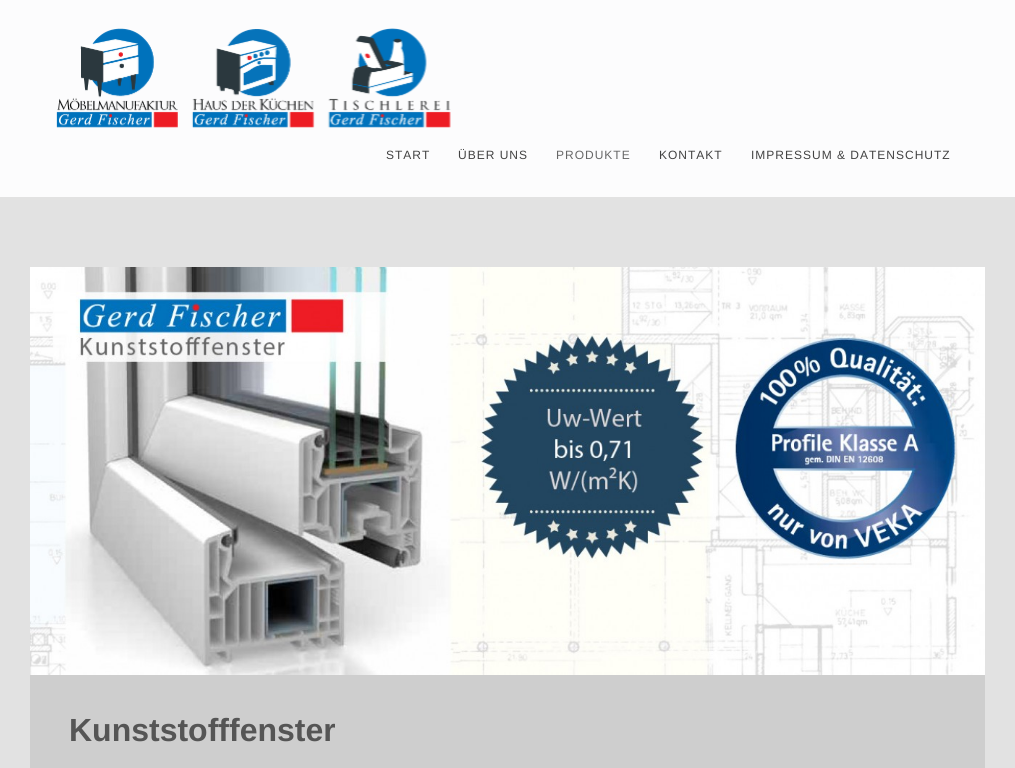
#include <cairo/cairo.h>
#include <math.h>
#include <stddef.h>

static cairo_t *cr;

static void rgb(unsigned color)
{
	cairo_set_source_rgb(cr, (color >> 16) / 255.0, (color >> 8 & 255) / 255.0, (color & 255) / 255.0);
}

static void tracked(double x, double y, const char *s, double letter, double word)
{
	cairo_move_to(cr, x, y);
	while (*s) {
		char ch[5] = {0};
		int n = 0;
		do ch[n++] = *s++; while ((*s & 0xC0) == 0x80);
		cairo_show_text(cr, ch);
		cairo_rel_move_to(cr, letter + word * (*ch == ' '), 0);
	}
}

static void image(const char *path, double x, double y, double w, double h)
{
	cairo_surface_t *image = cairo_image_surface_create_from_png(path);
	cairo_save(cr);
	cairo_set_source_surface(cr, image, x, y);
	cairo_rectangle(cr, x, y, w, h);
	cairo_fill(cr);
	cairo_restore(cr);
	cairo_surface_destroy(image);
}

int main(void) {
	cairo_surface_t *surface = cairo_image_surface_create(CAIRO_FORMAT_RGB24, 1015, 768);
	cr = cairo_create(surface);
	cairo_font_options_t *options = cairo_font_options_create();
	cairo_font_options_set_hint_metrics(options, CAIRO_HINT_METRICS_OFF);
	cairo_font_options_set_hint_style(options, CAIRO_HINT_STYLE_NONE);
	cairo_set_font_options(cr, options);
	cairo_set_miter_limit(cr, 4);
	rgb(0xe2e2e2);
	cairo_paint(cr);
	rgb(0xfcfcfd);
	cairo_rectangle(cr, 0, 0, 1015, 197);
	cairo_fill(cr);
	image("img/1.png", 56, 28, 395, 100);
	rgb(0xcecece);
	cairo_rectangle(cr, 30, 675, 955, 93);
	cairo_fill(cr);
	image("img/2.png", 30, 267, 955, 408);
	cairo_select_font_face(cr, "Liberation Sans", CAIRO_FONT_SLANT_NORMAL, CAIRO_FONT_WEIGHT_NORMAL);
	cairo_set_font_size(cr, 12);
	rgb(0x424242);
	tracked(386, 159, "START", 1, 0);
	tracked(458, 159, "ÜBER UNS", 1, 0);
	rgb(0x676767);
	tracked(556, 159, "PRODUKTE", 1, 0);
	rgb(0x424242);
	tracked(659, 159, "KONTAKT", 1, 0);
	tracked(751, 159, "IMPRESSUM & DATENSCHUTZ", 1, 0);
	cairo_select_font_face(cr, "Liberation Sans", CAIRO_FONT_SLANT_NORMAL, CAIRO_FONT_WEIGHT_BOLD);
	cairo_set_font_size(cr, 32);
	rgb(0x555555);
	cairo_move_to(cr, 69, 741);
	cairo_show_text(cr, "Kunststofffenster");
	cairo_surface_write_to_png(surface, "page.png");
	cairo_font_options_destroy(options);
	cairo_destroy(cr);
	cairo_surface_destroy(surface);
	return 0;
}
